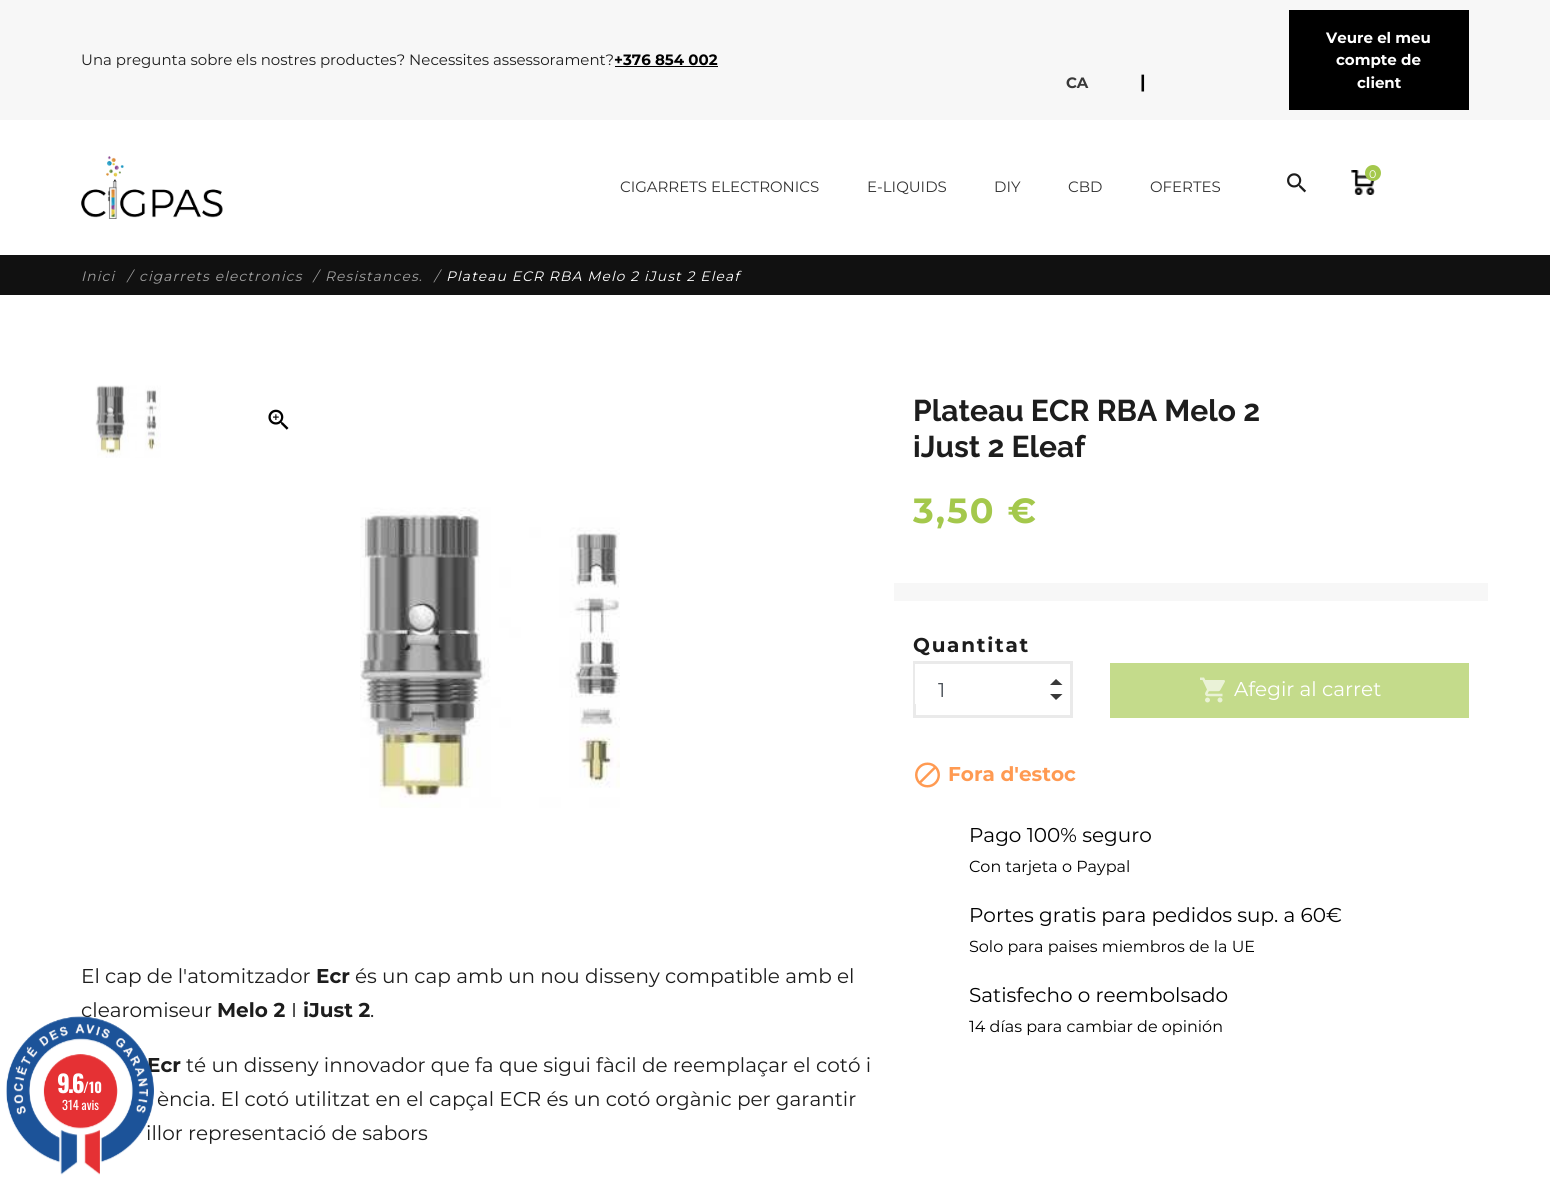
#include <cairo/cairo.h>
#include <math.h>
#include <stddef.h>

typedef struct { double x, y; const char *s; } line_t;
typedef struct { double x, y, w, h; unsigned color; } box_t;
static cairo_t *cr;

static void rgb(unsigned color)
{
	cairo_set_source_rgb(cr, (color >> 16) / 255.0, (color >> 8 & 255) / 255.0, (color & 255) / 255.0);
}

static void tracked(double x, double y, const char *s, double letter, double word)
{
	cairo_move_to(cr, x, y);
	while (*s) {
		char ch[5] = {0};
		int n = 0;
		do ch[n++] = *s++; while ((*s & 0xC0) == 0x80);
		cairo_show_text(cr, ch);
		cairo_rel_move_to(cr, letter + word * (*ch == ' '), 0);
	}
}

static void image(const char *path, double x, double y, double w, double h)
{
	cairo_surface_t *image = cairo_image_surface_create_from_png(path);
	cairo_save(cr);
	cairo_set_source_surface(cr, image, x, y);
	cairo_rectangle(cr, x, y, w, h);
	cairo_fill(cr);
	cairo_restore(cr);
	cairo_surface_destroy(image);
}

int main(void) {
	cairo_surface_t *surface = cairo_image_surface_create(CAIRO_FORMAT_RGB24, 1550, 1181);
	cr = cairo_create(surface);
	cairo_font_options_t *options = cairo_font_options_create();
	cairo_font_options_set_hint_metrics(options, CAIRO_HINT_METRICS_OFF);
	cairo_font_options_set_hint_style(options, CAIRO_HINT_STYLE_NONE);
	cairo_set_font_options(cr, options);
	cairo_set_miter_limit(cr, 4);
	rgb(0xffffff);
	cairo_paint(cr);
	{
		static const box_t items[] = {
			{0, 0, 1550, 120, 0xf7f7f7},
			{615, 66, 103, 1, 0x000000},
			{1289, 10, 180, 100, 0x000000},
		};
		for (size_t i = 0; i < sizeof items / sizeof *items; i++) {
			rgb(items[i].color);
			cairo_rectangle(cr, items[i].x, items[i].y, items[i].w, items[i].h);
			cairo_fill(cr);
		}
	}
	image("img/2.png", 81, 156, 142, 63);
	image("img/3.png", 1287, 173, 20, 20);
	image("img/4.png", 1351, 170, 24, 25);
	rgb(0xa4c84c);
	cairo_arc(cr, 1373, 173, 8, 0, 2 * M_PI);
	cairo_fill(cr);
	rgb(0x111111);
	cairo_rectangle(cr, 0, 255, 1550, 40);
	cairo_fill(cr);
	rgb(0xf7f7f7);
	cairo_rectangle(cr, 894, 583, 594, 18);
	cairo_fill(cr);
	cairo_rectangle(cr, 914.5, 662.5, 157, 54);
	rgb(0xeaeaea);
	cairo_set_line_width(cr, 3);
	cairo_stroke(cr);
	rgb(0xffffff);
	cairo_rectangle(cr, 915, 664, 1, 40);
	cairo_fill(cr);
	rgb(0x393939);
	cairo_new_path(cr);
	cairo_move_to(cr, 1062.5, 685);
	cairo_line_to(cr, 1050, 685);
	cairo_line_to(cr, 1056, 679);
	cairo_close_path(cr);
	cairo_move_to(cr, 1050, 694);
	cairo_line_to(cr, 1062.5, 694);
	cairo_line_to(cr, 1056, 700);
	cairo_close_path(cr);
	cairo_fill(cr);
	rgb(0xc4db8b);
	cairo_rectangle(cr, 1110, 663, 359, 55);
	cairo_fill(cr);
	image("img/5.png", 1200, 677, 25, 26);
	image("img/6.png", 915, 762, 25, 26);
	image("img/7.png", 95, 385, 66, 73);
	image("img/8.png", 268, 409, 21, 21);
	image("img/9.png", 360, 507, 260, 301);
	cairo_select_font_face(cr, "Montserrat", CAIRO_FONT_SLANT_NORMAL, CAIRO_FONT_WEIGHT_NORMAL);
	cairo_set_font_size(cr, 15);
	rgb(0x1d1d1d);
	cairo_move_to(cr, 81, 65);
	cairo_show_text(cr, "Una pregunta sobre els nostres productes? Necessites assessorament?");
	cairo_select_font_face(cr, "Montserrat", CAIRO_FONT_SLANT_NORMAL, CAIRO_FONT_WEIGHT_BOLD);
	rgb(0x000000);
	cairo_move_to(cr, 614, 65);
	cairo_show_text(cr, "+376 854 002");
	rgb(0x393939);
	cairo_move_to(cr, 1066, 88);
	cairo_show_text(cr, "CA");
	cairo_set_font_size(cr, 18);
	rgb(0x000000);
	cairo_move_to(cr, 1140, 88);
	cairo_show_text(cr, "|");
	cairo_set_font_size(cr, 15);
	rgb(0xffffff);
	{
		static const line_t items[] = {
			{1326, 43, "Veure el meu"},
			{1336, 65, "compte de"},
			{1357, 88, "client"},
		};
		for (size_t i = 0; i < sizeof items / sizeof *items; i++) {
			cairo_move_to(cr, items[i].x, items[i].y);
			cairo_show_text(cr, items[i].s);
		}
	}
	cairo_select_font_face(cr, "Montserrat", CAIRO_FONT_SLANT_NORMAL, CAIRO_FONT_WEIGHT_NORMAL);
	cairo_set_font_size(cr, 11);
	cairo_move_to(cr, 1369, 178);
	cairo_show_text(cr, "0");
	cairo_set_font_size(cr, 15);
	rgb(0x333333);
	{
		static const line_t items[] = {
			{620, 192, "CIGARRETS ELECTRONICS"},
			{867, 192, "E-LIQUIDS"},
			{994, 192, "DIY"},
			{1068, 192, "CBD"},
			{1150, 192, "OFERTES"},
		};
		for (size_t i = 0; i < sizeof items / sizeof *items; i++) {
			cairo_move_to(cr, items[i].x, items[i].y);
			cairo_show_text(cr, items[i].s);
		}
	}
	cairo_select_font_face(cr, "Montserrat", CAIRO_FONT_SLANT_ITALIC, CAIRO_FONT_WEIGHT_NORMAL);
	cairo_set_font_size(cr, 13.75);
	rgb(0xa0a0a0);
	{
		static const line_t items[] = {
			{81, 281, "Inici"},
			{127, 281, "/"},
			{139, 281, "cigarrets electronics"},
			{313, 281, "/"},
			{325, 281, "Resistances."},
			{434, 281, "/"},
		};
		for (size_t i = 0; i < sizeof items / sizeof *items; i++) {
			tracked(items[i].x, items[i].y, items[i].s, 1.15, 0);
		}
	}
	rgb(0xffffff);
	tracked(446, 281, "Plateau ECR RBA Melo 2 iJust 2 Eleaf", 1.15, 0);
	cairo_select_font_face(cr, "Raleway", CAIRO_FONT_SLANT_NORMAL, CAIRO_FONT_WEIGHT_BOLD);
	cairo_set_font_size(cr, 30);
	rgb(0x1d1d1d);
	cairo_move_to(cr, 913, 421);
	cairo_show_text(cr, "Plateau ECR RBA Melo 2");
	cairo_move_to(cr, 913, 457);
	cairo_show_text(cr, "iJust 2 Eleaf");
	cairo_select_font_face(cr, "Montserrat", CAIRO_FONT_SLANT_NORMAL, CAIRO_FONT_WEIGHT_BOLD);
	cairo_set_font_size(cr, 35);
	rgb(0xa4c84c);
	tracked(913, 523, "3,50 €", 2, 0);
	cairo_set_font_size(cr, 20);
	rgb(0x1d1d1d);
	tracked(913, 652, "Quantitat", 1.75, 0);
	cairo_select_font_face(cr, "Montserrat", CAIRO_FONT_SLANT_NORMAL, CAIRO_FONT_WEIGHT_NORMAL);
	rgb(0x495057);
	cairo_move_to(cr, 938, 697);
	cairo_show_text(cr, "1");
	rgb(0xffffff);
	cairo_move_to(cr, 1234, 696);
	cairo_show_text(cr, "Afegir al carret");
	cairo_select_font_face(cr, "Montserrat", CAIRO_FONT_SLANT_NORMAL, CAIRO_FONT_WEIGHT_BOLD);
	rgb(0xff9a52);
	cairo_move_to(cr, 948, 781);
	cairo_show_text(cr, "Fora d'estoc");
	cairo_select_font_face(cr, "Montserrat", CAIRO_FONT_SLANT_NORMAL, CAIRO_FONT_WEIGHT_NORMAL);
	rgb(0x000000);
	cairo_move_to(cr, 969, 842);
	cairo_show_text(cr, "Pago 100% seguro");
	cairo_set_font_size(cr, 16);
	cairo_move_to(cr, 969, 872);
	cairo_show_text(cr, "Con tarjeta o Paypal");
	cairo_set_font_size(cr, 20);
	cairo_move_to(cr, 969, 922);
	cairo_show_text(cr, "Portes gratis para pedidos sup. a 60€");
	cairo_set_font_size(cr, 16);
	cairo_move_to(cr, 969, 952);
	cairo_show_text(cr, "Solo para paises miembros de la UE");
	cairo_set_font_size(cr, 20);
	cairo_move_to(cr, 969, 1002);
	cairo_show_text(cr, "Satisfecho o reembolsado");
	cairo_set_font_size(cr, 16);
	cairo_move_to(cr, 969, 1032);
	cairo_show_text(cr, "14 días para cambiar de opinión");
	cairo_set_font_size(cr, 20);
	rgb(0x1d1d1d);
	cairo_move_to(cr, 81, 983);
	cairo_show_text(cr, "El cap de l'atomitzador");
	cairo_select_font_face(cr, "Montserrat", CAIRO_FONT_SLANT_NORMAL, CAIRO_FONT_WEIGHT_BOLD);
	cairo_move_to(cr, 316, 983);
	cairo_show_text(cr, "Ecr");
	cairo_select_font_face(cr, "Montserrat", CAIRO_FONT_SLANT_NORMAL, CAIRO_FONT_WEIGHT_NORMAL);
	cairo_move_to(cr, 355, 983);
	cairo_show_text(cr, "és un cap amb un nou disseny compatible amb el");
	cairo_move_to(cr, 81, 1017);
	cairo_show_text(cr, "clearomiseur");
	cairo_select_font_face(cr, "Montserrat", CAIRO_FONT_SLANT_NORMAL, CAIRO_FONT_WEIGHT_BOLD);
	cairo_move_to(cr, 217, 1017);
	cairo_show_text(cr, "Melo 2");
	cairo_select_font_face(cr, "Montserrat", CAIRO_FONT_SLANT_NORMAL, CAIRO_FONT_WEIGHT_NORMAL);
	cairo_move_to(cr, 291, 1017);
	cairo_show_text(cr, "I");
	cairo_select_font_face(cr, "Montserrat", CAIRO_FONT_SLANT_NORMAL, CAIRO_FONT_WEIGHT_BOLD);
	cairo_move_to(cr, 303, 1017);
	cairo_show_text(cr, "iJust 2");
	cairo_select_font_face(cr, "Montserrat", CAIRO_FONT_SLANT_NORMAL, CAIRO_FONT_WEIGHT_NORMAL);
	cairo_move_to(cr, 370, 1017);
	cairo_show_text(cr, ".");
	cairo_select_font_face(cr, "Montserrat", CAIRO_FONT_SLANT_NORMAL, CAIRO_FONT_WEIGHT_BOLD);
	cairo_move_to(cr, 147, 1072);
	cairo_show_text(cr, "Ecr");
	cairo_select_font_face(cr, "Montserrat", CAIRO_FONT_SLANT_NORMAL, CAIRO_FONT_WEIGHT_NORMAL);
	{
		static const line_t items[] = {
			{186, 1072, "té un disseny innovador que fa que sigui fàcil de reemplaçar el cotó i"},
			{157, 1106, "ència. El cotó utilitzat en el capçal ECR és un cotó orgànic per garantir"},
			{146, 1140, "illor representació de sabors"},
		};
		for (size_t i = 0; i < sizeof items / sizeof *items; i++) {
			cairo_move_to(cr, items[i].x, items[i].y);
			cairo_show_text(cr, items[i].s);
		}
	}
	image("img/1.png", 6, 1016, 148, 159);
	cairo_select_font_face(cr, "Oswald", CAIRO_FONT_SLANT_NORMAL, CAIRO_FONT_WEIGHT_NORMAL);
	cairo_set_font_size(cr, 12.5);
	rgb(0xffffff);
	cairo_move_to(cr, 62, 1110);
	cairo_show_text(cr, "314 avis");
	cairo_select_font_face(cr, "Oswald", CAIRO_FONT_SLANT_NORMAL, CAIRO_FONT_WEIGHT_BOLD);
	cairo_set_font_size(cr, 24);
	tracked(57, 1093, "9.6", -2, 0);
	cairo_set_font_size(cr, 14);
	cairo_move_to(cr, 83, 1093);
	cairo_show_text(cr, "/10");
	cairo_surface_write_to_png(surface, "page.png");
	cairo_font_options_destroy(options);
	cairo_destroy(cr);
	cairo_surface_destroy(surface);
	return 0;
}
